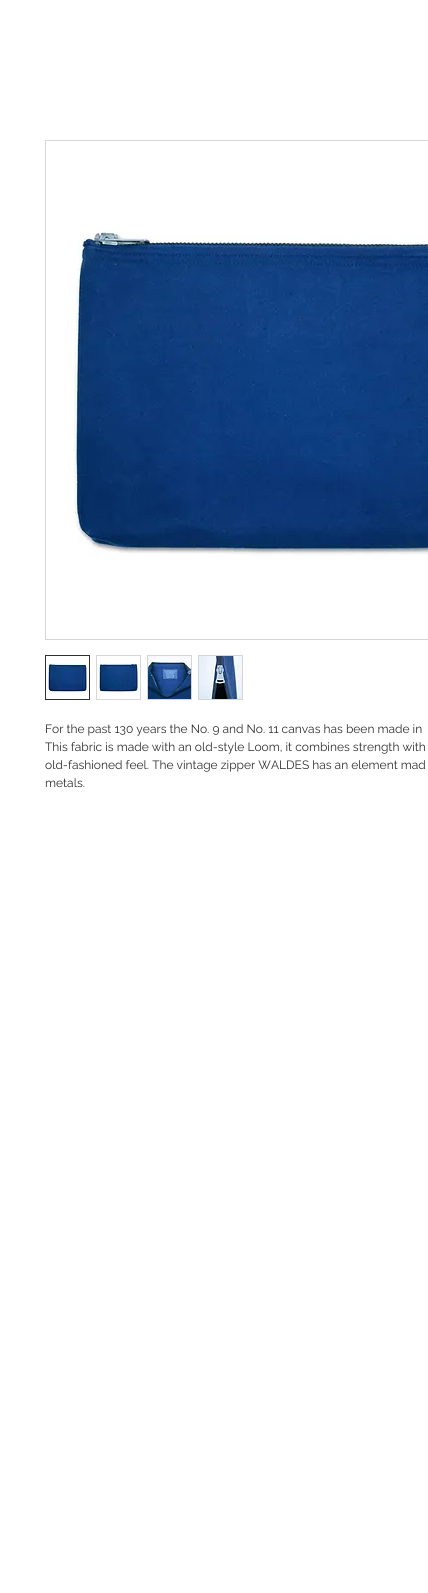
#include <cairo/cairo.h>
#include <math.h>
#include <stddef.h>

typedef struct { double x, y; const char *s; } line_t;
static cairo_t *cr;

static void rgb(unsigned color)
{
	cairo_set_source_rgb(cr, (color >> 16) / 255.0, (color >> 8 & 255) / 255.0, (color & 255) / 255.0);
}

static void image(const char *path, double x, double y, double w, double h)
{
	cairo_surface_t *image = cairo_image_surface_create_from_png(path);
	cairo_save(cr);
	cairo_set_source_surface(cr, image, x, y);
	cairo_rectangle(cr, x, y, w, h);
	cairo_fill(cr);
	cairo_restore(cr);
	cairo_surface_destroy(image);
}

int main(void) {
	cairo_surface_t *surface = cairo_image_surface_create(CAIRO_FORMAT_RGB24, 428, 1593);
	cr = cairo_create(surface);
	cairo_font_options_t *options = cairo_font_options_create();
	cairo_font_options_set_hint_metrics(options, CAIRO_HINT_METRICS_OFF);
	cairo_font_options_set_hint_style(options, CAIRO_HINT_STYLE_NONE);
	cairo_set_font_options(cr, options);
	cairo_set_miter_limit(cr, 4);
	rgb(0xffffff);
	cairo_paint(cr);
	cairo_rectangle(cr, 45.5, 140.5, 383, 499);
	rgb(0xd6d6d6);
	cairo_set_line_width(cr, 1);
	cairo_stroke(cr);
	image("img/1.png", 74, 230, 354, 326);
	cairo_rectangle(cr, 45.5, 655.5, 44, 44);
	rgb(0x2f2f2f);
	cairo_stroke(cr);
	image("img/2.png", 46, 656, 43, 43);
	rgb(0xd6d6d6);
	cairo_rectangle(cr, 96, 655, 45, 45);
	cairo_fill(cr);
	image("img/3.png", 97, 656, 43, 43);
	cairo_rectangle(cr, 147, 655, 45, 45);
	cairo_fill(cr);
	image("img/4.png", 148, 656, 43, 43);
	cairo_rectangle(cr, 198, 655, 45, 45);
	cairo_fill(cr);
	image("img/5.png", 199, 656, 43, 43);
	cairo_select_font_face(cr, "Raleway", CAIRO_FONT_SLANT_NORMAL, CAIRO_FONT_WEIGHT_NORMAL);
	cairo_set_font_size(cr, 12);
	rgb(0x2f2f2f);
	{
		static const line_t items[] = {
			{45, 733, "For the past 130 years the No. 9 and No. 11 canvas has been made in"},
			{45, 751, "This fabric is made with an old-style Loom, it combines strength with"},
			{45, 769, "old-fashioned feel. The vintage zipper WALDES has an element mad"},
			{45, 787, "metals."},
		};
		for (size_t i = 0; i < sizeof items / sizeof *items; i++) {
			cairo_move_to(cr, items[i].x, items[i].y);
			cairo_show_text(cr, items[i].s);
		}
	}
	cairo_surface_write_to_png(surface, "page.png");
	cairo_font_options_destroy(options);
	cairo_destroy(cr);
	cairo_surface_destroy(surface);
	return 0;
}
